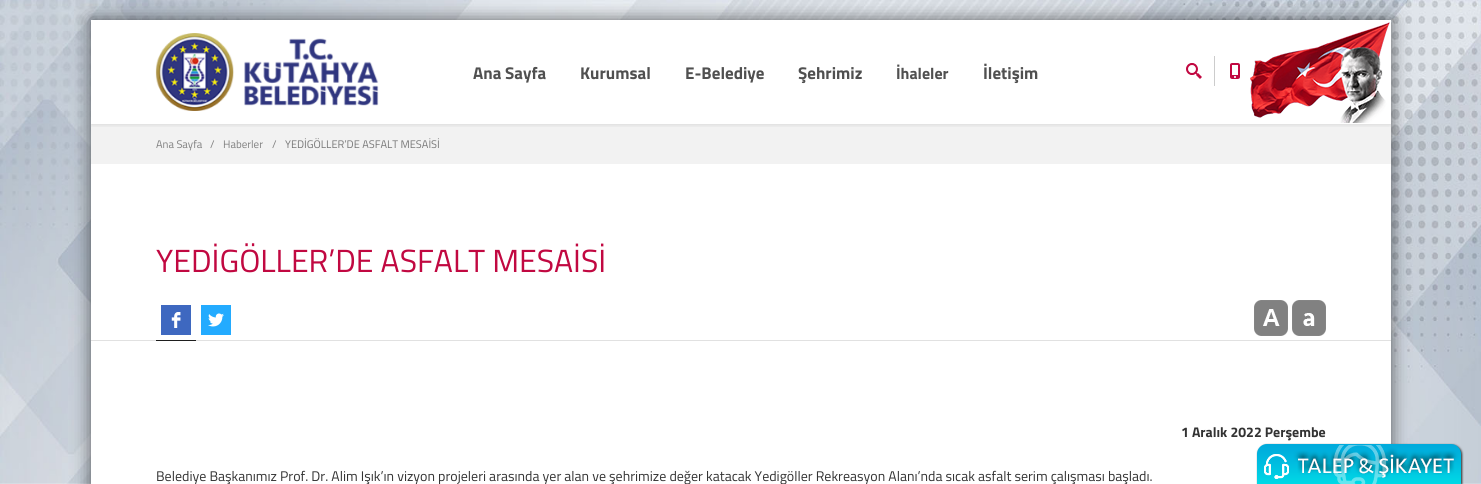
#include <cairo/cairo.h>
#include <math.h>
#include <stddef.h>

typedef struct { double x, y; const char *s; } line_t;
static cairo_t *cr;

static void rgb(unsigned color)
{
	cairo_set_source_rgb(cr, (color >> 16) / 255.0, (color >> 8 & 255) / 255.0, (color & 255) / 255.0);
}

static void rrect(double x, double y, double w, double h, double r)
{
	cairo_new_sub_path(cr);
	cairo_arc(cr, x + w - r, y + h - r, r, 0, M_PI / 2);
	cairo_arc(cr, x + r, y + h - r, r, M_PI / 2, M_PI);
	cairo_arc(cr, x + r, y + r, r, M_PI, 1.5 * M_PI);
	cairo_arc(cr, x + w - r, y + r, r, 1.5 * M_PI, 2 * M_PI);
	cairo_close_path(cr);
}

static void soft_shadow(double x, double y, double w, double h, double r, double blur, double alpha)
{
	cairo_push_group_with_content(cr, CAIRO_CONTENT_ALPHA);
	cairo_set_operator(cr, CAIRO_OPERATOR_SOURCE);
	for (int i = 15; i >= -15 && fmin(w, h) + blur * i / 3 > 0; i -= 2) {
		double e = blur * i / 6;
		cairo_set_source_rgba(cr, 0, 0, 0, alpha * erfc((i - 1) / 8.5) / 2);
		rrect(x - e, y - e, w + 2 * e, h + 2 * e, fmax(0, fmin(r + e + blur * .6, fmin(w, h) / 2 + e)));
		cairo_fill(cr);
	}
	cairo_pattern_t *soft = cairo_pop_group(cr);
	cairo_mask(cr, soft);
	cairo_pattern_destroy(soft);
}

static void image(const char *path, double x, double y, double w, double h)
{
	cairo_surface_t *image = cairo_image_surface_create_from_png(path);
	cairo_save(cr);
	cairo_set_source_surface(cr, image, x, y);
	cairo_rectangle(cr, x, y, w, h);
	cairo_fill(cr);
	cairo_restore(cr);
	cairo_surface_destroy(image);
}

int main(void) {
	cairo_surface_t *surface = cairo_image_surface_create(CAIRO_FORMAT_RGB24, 1481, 484);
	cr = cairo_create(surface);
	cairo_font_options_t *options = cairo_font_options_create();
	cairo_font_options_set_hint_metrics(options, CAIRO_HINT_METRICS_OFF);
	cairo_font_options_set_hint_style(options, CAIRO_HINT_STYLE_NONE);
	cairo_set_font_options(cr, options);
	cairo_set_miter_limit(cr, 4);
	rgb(0xffffff);
	cairo_paint(cr);
	image("img/1.png", 0, 0, 1481, 484);
	rgb(0x000000);
	soft_shadow(91, 20, 1300, 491, 0, 9, 0.6);
	rgb(0xffffff);
	cairo_rectangle(cr, 91, 20, 1300, 464);
	cairo_fill(cr);
	rgb(0xf2f2f2);
	cairo_rectangle(cr, 91, 124, 1300, 40);
	cairo_fill(cr);
	cairo_save(cr);
	cairo_rectangle(cr, 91, 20, 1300, 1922);
	cairo_clip(cr);
	cairo_rectangle(cr, 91, 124, 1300, 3);
	cairo_clip(cr);
	rgb(0x000000);
	soft_shadow(91, 20, 1300, 104, 0, 2.5, 0.15);
	cairo_restore(cr);
	image("img/2.png", 1250, 22, 140, 101);
	image("img/3.png", 155, 33, 224, 78);
	rgb(0xcccccc);
	cairo_rectangle(cr, 1214, 56, 1, 30);
	cairo_fill(cr);
	image("img/4.png", 1186, 63, 16, 16);
	image("img/5.png", 1230, 63, 10, 16);
	rgb(0xe1e1e1);
	cairo_rectangle(cr, 91, 340, 1300, 1);
	cairo_fill(cr);
	rgb(0x3e68c0);
	cairo_rectangle(cr, 161, 305, 30, 30);
	cairo_fill(cr);
	image("img/6.png", 171, 312, 10, 16);
	rgb(0x23abff);
	cairo_rectangle(cr, 201, 305, 30, 30);
	cairo_fill(cr);
	image("img/7.png", 208, 313, 16, 14);
	image("img/8.png", 1254, 300, 34, 36);
	image("img/9.png", 1292, 300, 34, 36);
	rgb(0x1e1e1e);
	cairo_rectangle(cr, 156, 340, 40, 1);
	cairo_fill(cr);
	image("img/10.png", 1256, 443, 208, 41);
	cairo_select_font_face(cr, "Titillium Web", CAIRO_FONT_SLANT_NORMAL, CAIRO_FONT_WEIGHT_BOLD);
	cairo_set_font_size(cr, 17);
	rgb(0x505050);
	{
		static const line_t items[] = {
			{473, 79, "Ana Sayfa"},
			{580, 79, "Kurumsal"},
			{685, 79, "E-Belediye"},
			{798, 79, "Şehrimiz"},
		};
		for (size_t i = 0; i < sizeof items / sizeof *items; i++) {
			cairo_move_to(cr, items[i].x, items[i].y);
			cairo_show_text(cr, items[i].s);
		}
	}
	cairo_set_font_size(cr, 16);
	cairo_move_to(cr, 896, 79);
	cairo_show_text(cr, "İhaleler");
	cairo_set_font_size(cr, 17);
	cairo_move_to(cr, 983, 79);
	cairo_show_text(cr, "İletişim");
	cairo_select_font_face(cr, "Titillium Web", CAIRO_FONT_SLANT_NORMAL, CAIRO_FONT_WEIGHT_NORMAL);
	cairo_set_font_size(cr, 11);
	rgb(0x7f7f7f);
	{
		static const line_t items[] = {
			{156, 148, "Ana Sayfa"},
			{210, 148, "/"},
			{223, 148, "Haberler"},
			{272, 148, "/"},
		};
		for (size_t i = 0; i < sizeof items / sizeof *items; i++) {
			cairo_move_to(cr, items[i].x, items[i].y);
			cairo_show_text(cr, items[i].s);
		}
	}
	rgb(0x777777);
	cairo_move_to(cr, 285, 148);
	cairo_show_text(cr, "YEDİGÖLLER’DE ASFALT MESAİSİ");
	cairo_set_font_size(cr, 32);
	rgb(0xc10841);
	cairo_move_to(cr, 156, 272);
	cairo_show_text(cr, "YEDİGÖLLER’DE ASFALT MESAİSİ");
	cairo_select_font_face(cr, "Titillium Web", CAIRO_FONT_SLANT_NORMAL, CAIRO_FONT_WEIGHT_BOLD);
	cairo_set_font_size(cr, 14);
	rgb(0x333333);
	cairo_move_to(cr, 1181, 437);
	cairo_show_text(cr, "1 Aralık 2022 Perşembe");
	cairo_select_font_face(cr, "Titillium Web", CAIRO_FONT_SLANT_NORMAL, CAIRO_FONT_WEIGHT_NORMAL);
	cairo_move_to(cr, 156, 481);
	cairo_show_text(cr, "Belediye Başkanımız Prof. Dr. Alim Işık’ın vizyon projeleri arasında yer alan ve şehrimize değer katacak Yedigöller Rekreasyon Alanı’nda sıcak asfalt serim çalışması başladı.");
	cairo_surface_write_to_png(surface, "page.png");
	cairo_font_options_destroy(options);
	cairo_destroy(cr);
	cairo_surface_destroy(surface);
	return 0;
}
